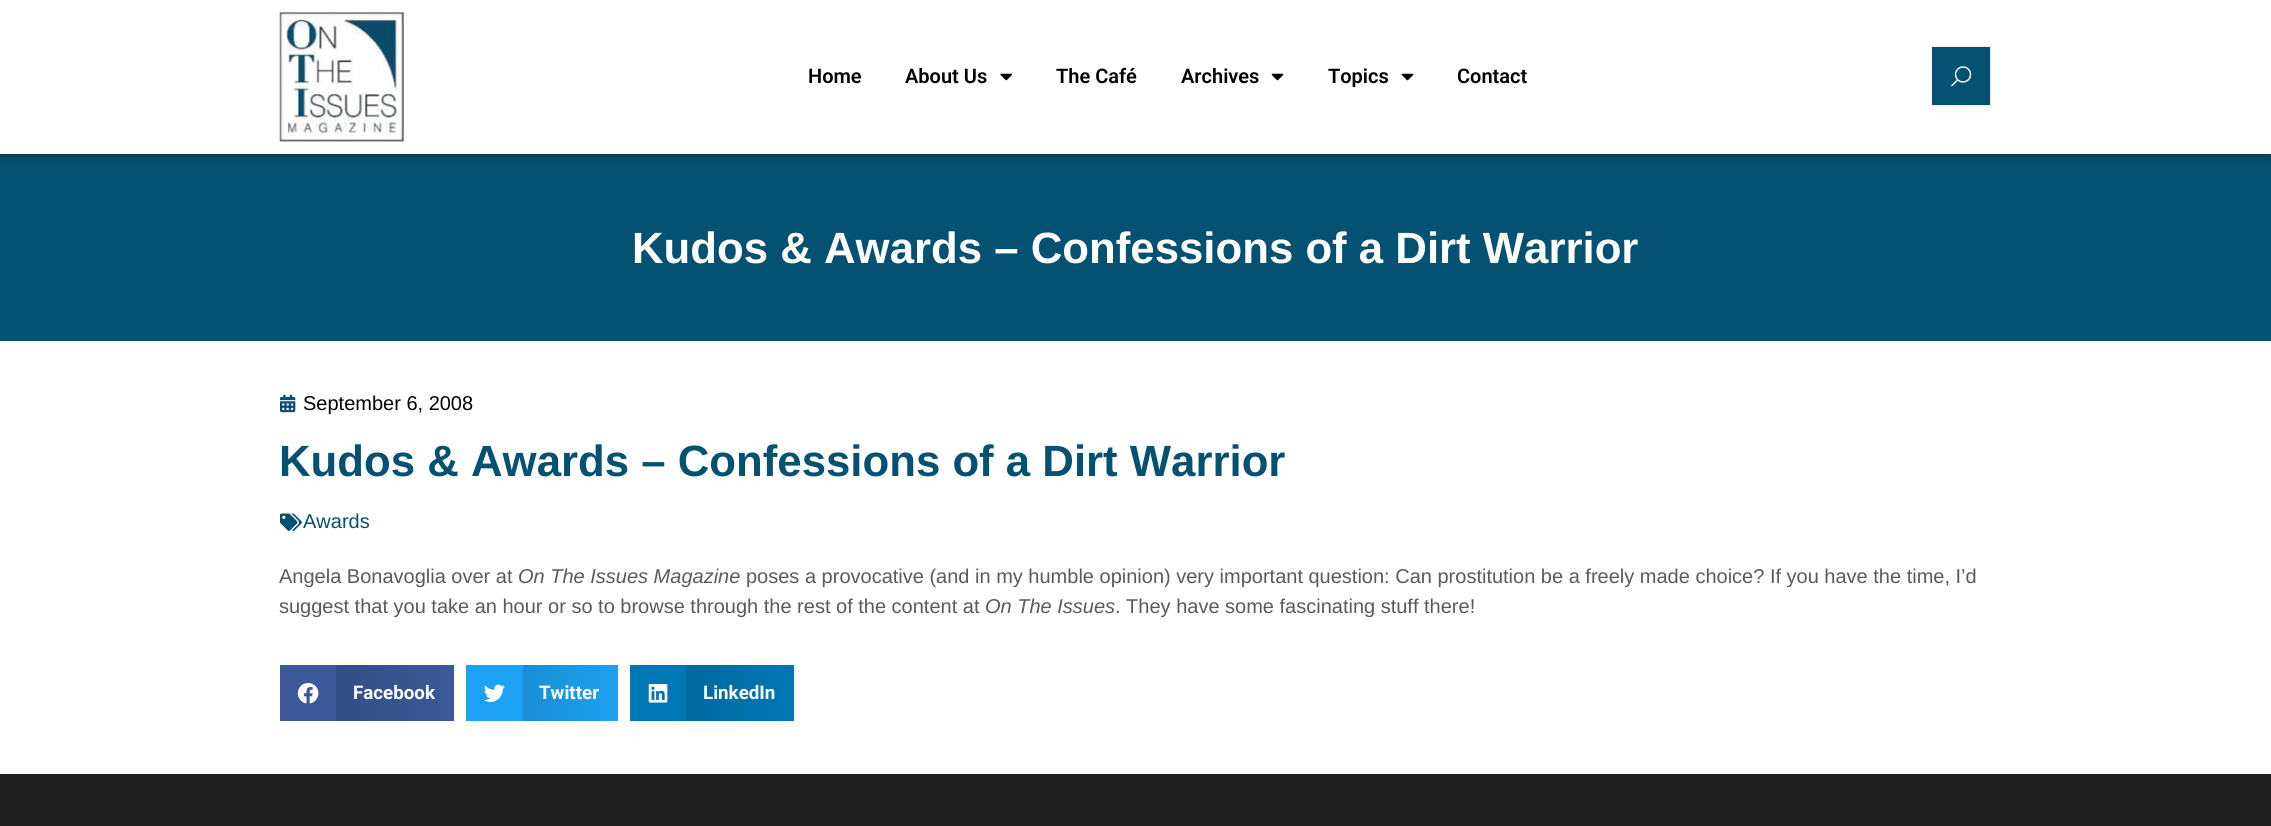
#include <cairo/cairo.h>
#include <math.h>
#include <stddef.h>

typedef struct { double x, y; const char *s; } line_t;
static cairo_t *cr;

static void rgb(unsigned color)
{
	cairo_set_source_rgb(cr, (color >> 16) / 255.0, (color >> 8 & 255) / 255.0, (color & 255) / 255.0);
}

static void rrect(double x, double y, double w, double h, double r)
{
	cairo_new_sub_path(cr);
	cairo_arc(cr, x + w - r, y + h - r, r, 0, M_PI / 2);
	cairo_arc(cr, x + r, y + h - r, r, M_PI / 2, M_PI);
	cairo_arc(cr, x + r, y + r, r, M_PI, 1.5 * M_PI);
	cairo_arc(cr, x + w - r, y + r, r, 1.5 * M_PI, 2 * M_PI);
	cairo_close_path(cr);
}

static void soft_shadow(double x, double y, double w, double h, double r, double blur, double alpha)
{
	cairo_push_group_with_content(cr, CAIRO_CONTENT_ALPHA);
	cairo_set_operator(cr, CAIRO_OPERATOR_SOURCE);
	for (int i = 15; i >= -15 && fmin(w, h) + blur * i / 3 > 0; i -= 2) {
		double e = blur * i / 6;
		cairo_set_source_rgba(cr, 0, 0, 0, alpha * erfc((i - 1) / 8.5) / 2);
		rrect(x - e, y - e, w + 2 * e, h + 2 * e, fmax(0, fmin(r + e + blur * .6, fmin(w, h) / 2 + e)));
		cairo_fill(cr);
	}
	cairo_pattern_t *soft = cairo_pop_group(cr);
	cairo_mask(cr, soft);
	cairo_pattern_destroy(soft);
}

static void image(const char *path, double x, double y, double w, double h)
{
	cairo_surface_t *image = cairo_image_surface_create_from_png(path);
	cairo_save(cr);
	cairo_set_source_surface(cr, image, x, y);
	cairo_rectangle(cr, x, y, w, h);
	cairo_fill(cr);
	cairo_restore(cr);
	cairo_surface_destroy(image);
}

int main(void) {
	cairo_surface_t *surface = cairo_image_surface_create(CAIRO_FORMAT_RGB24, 2271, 826);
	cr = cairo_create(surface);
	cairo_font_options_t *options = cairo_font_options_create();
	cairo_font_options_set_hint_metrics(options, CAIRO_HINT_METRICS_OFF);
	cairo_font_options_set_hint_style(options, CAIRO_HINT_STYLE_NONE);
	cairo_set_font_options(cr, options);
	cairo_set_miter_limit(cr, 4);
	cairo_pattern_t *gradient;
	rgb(0xffffff);
	cairo_paint(cr);
	rgb(0x045171);
	cairo_rectangle(cr, 0, 154, 2271, 187);
	cairo_fill(cr);
	rgb(0x000000);
	soft_shadow(0, 0, 2271, 154, 0, 6, 0.5);
	rgb(0xffffff);
	cairo_rectangle(cr, 0, 0, 2271, 154);
	cairo_fill(cr);
	image("img/1.png", 279, 12, 125, 130);
	image("img/2.png", 1000, 73, 12, 8);
	image("img/3.png", 1271, 73, 13, 8);
	image("img/3.png", 1401, 73, 13, 8);
	rgb(0x045171);
	cairo_rectangle(cr, 1931.5, 46.5, 59, 59);
	cairo_fill_preserve(cr);
	rgb(0xeceeef);
	cairo_set_line_width(cr, 1);
	cairo_stroke(cr);
	image("img/4.png", 1951, 66, 21, 21);
	image("img/5.png", 280, 394, 16, 19);
	image("img/6.png", 280, 513, 22, 18);
	rgb(0x3b5998);
	cairo_rectangle(cr, 280, 665, 56, 56);
	cairo_fill(cr);
	image("img/7.png", 297, 683, 22, 21);
	gradient = cairo_pattern_create_linear(336, 693, 454, 693);
	cairo_pattern_add_color_stop_rgba(gradient, 0, 0.204, 0.306, 0.525, 1);
	cairo_pattern_add_color_stop_rgba(gradient, 1, 0.231, 0.349, 0.596, 1);
	cairo_set_source(cr, gradient);
	cairo_pattern_destroy(gradient);
	cairo_rectangle(cr, 336, 665, 118, 56);
	cairo_fill(cr);
	rgb(0x1da1f2);
	cairo_rectangle(cr, 466, 665, 57, 56);
	cairo_fill(cr);
	image("img/8.png", 484, 684, 21, 18);
	gradient = cairo_pattern_create_linear(523, 693, 618, 693);
	cairo_pattern_add_color_stop_rgba(gradient, 0, 0.102, 0.557, 0.835, 1);
	cairo_pattern_add_color_stop_rgba(gradient, 1, 0.114, 0.631, 0.949, 1);
	cairo_set_source(cr, gradient);
	cairo_pattern_destroy(gradient);
	cairo_rectangle(cr, 523, 665, 95, 56);
	cairo_fill(cr);
	rgb(0x0077b5);
	cairo_rectangle(cr, 630, 665, 56, 56);
	cairo_fill(cr);
	image("img/9.png", 648, 684, 20, 19);
	gradient = cairo_pattern_create_linear(686, 693, 794, 693);
	cairo_pattern_add_color_stop_rgba(gradient, 0, 0, 0.412, 0.624, 1);
	cairo_pattern_add_color_stop_rgba(gradient, 1, 0, 0.467, 0.71, 1);
	cairo_set_source(cr, gradient);
	cairo_pattern_destroy(gradient);
	cairo_rectangle(cr, 686, 665, 108, 56);
	cairo_fill(cr);
	rgb(0x1e1e1e);
	cairo_rectangle(cr, 0, 774, 2271, 52);
	cairo_fill(cr);
	cairo_select_font_face(cr, "Roboto SemiBold", CAIRO_FONT_SLANT_NORMAL, CAIRO_FONT_WEIGHT_NORMAL);
	cairo_set_font_size(cr, 20);
	rgb(0x000000);
	{
		static const line_t items[] = {
			{808, 83, "Home"},
			{905, 83, "About Us"},
			{1056, 83, "The Café"},
			{1181, 83, "Archives"},
			{1328, 83, "Topics"},
			{1457, 83, "Contact"},
		};
		for (size_t i = 0; i < sizeof items / sizeof *items; i++) {
			cairo_move_to(cr, items[i].x, items[i].y);
			cairo_show_text(cr, items[i].s);
		}
	}
	cairo_select_font_face(cr, "Liberation Sans", CAIRO_FONT_SLANT_NORMAL, CAIRO_FONT_WEIGHT_BOLD);
	cairo_set_font_size(cr, 43.75);
	rgb(0xffffff);
	cairo_move_to(cr, 632, 263);
	cairo_show_text(cr, "Kudos & Awards – Confessions of a Dirt Warrior");
	cairo_select_font_face(cr, "Liberation Sans", CAIRO_FONT_SLANT_NORMAL, CAIRO_FONT_WEIGHT_NORMAL);
	cairo_set_font_size(cr, 20);
	rgb(0x000000);
	cairo_move_to(cr, 303, 410);
	cairo_show_text(cr, "September 6, 2008");
	cairo_select_font_face(cr, "Liberation Sans", CAIRO_FONT_SLANT_NORMAL, CAIRO_FONT_WEIGHT_BOLD);
	cairo_set_font_size(cr, 43.75);
	rgb(0x045171);
	cairo_move_to(cr, 279, 476);
	cairo_show_text(cr, "Kudos & Awards – Confessions of a Dirt Warrior");
	cairo_select_font_face(cr, "Liberation Sans", CAIRO_FONT_SLANT_NORMAL, CAIRO_FONT_WEIGHT_NORMAL);
	cairo_set_font_size(cr, 20);
	cairo_move_to(cr, 303, 528);
	cairo_show_text(cr, "Awards");
	rgb(0x5a5a5a);
	cairo_move_to(cr, 279, 583);
	cairo_show_text(cr, "Angela Bonavoglia over at");
	cairo_select_font_face(cr, "Liberation Sans", CAIRO_FONT_SLANT_ITALIC, CAIRO_FONT_WEIGHT_NORMAL);
	cairo_move_to(cr, 518, 583);
	cairo_show_text(cr, "On The Issues Magazine");
	cairo_select_font_face(cr, "Liberation Sans", CAIRO_FONT_SLANT_NORMAL, CAIRO_FONT_WEIGHT_NORMAL);
	cairo_move_to(cr, 746, 583);
	cairo_show_text(cr, "poses a provocative (and in my humble opinion) very important question: Can prostitution be a freely made choice? If you have the time, I’d");
	cairo_move_to(cr, 279, 613);
	cairo_show_text(cr, "suggest that you take an hour or so to browse through the rest of the content at");
	cairo_select_font_face(cr, "Liberation Sans", CAIRO_FONT_SLANT_ITALIC, CAIRO_FONT_WEIGHT_NORMAL);
	cairo_move_to(cr, 985, 613);
	cairo_show_text(cr, "On The Issues");
	cairo_select_font_face(cr, "Liberation Sans", CAIRO_FONT_SLANT_NORMAL, CAIRO_FONT_WEIGHT_NORMAL);
	cairo_move_to(cr, 1115, 613);
	cairo_show_text(cr, ". They have some fascinating stuff there!");
	cairo_select_font_face(cr, "Roboto", CAIRO_FONT_SLANT_NORMAL, CAIRO_FONT_WEIGHT_BOLD);
	cairo_set_font_size(cr, 18.75);
	rgb(0xffffff);
	{
		static const line_t items[] = {
			{353, 699, "Facebook"},
			{539, 699, "Twitter"},
			{703, 699, "LinkedIn"},
		};
		for (size_t i = 0; i < sizeof items / sizeof *items; i++) {
			cairo_move_to(cr, items[i].x, items[i].y);
			cairo_show_text(cr, items[i].s);
		}
	}
	cairo_surface_write_to_png(surface, "page.png");
	cairo_font_options_destroy(options);
	cairo_destroy(cr);
	cairo_surface_destroy(surface);
	return 0;
}
